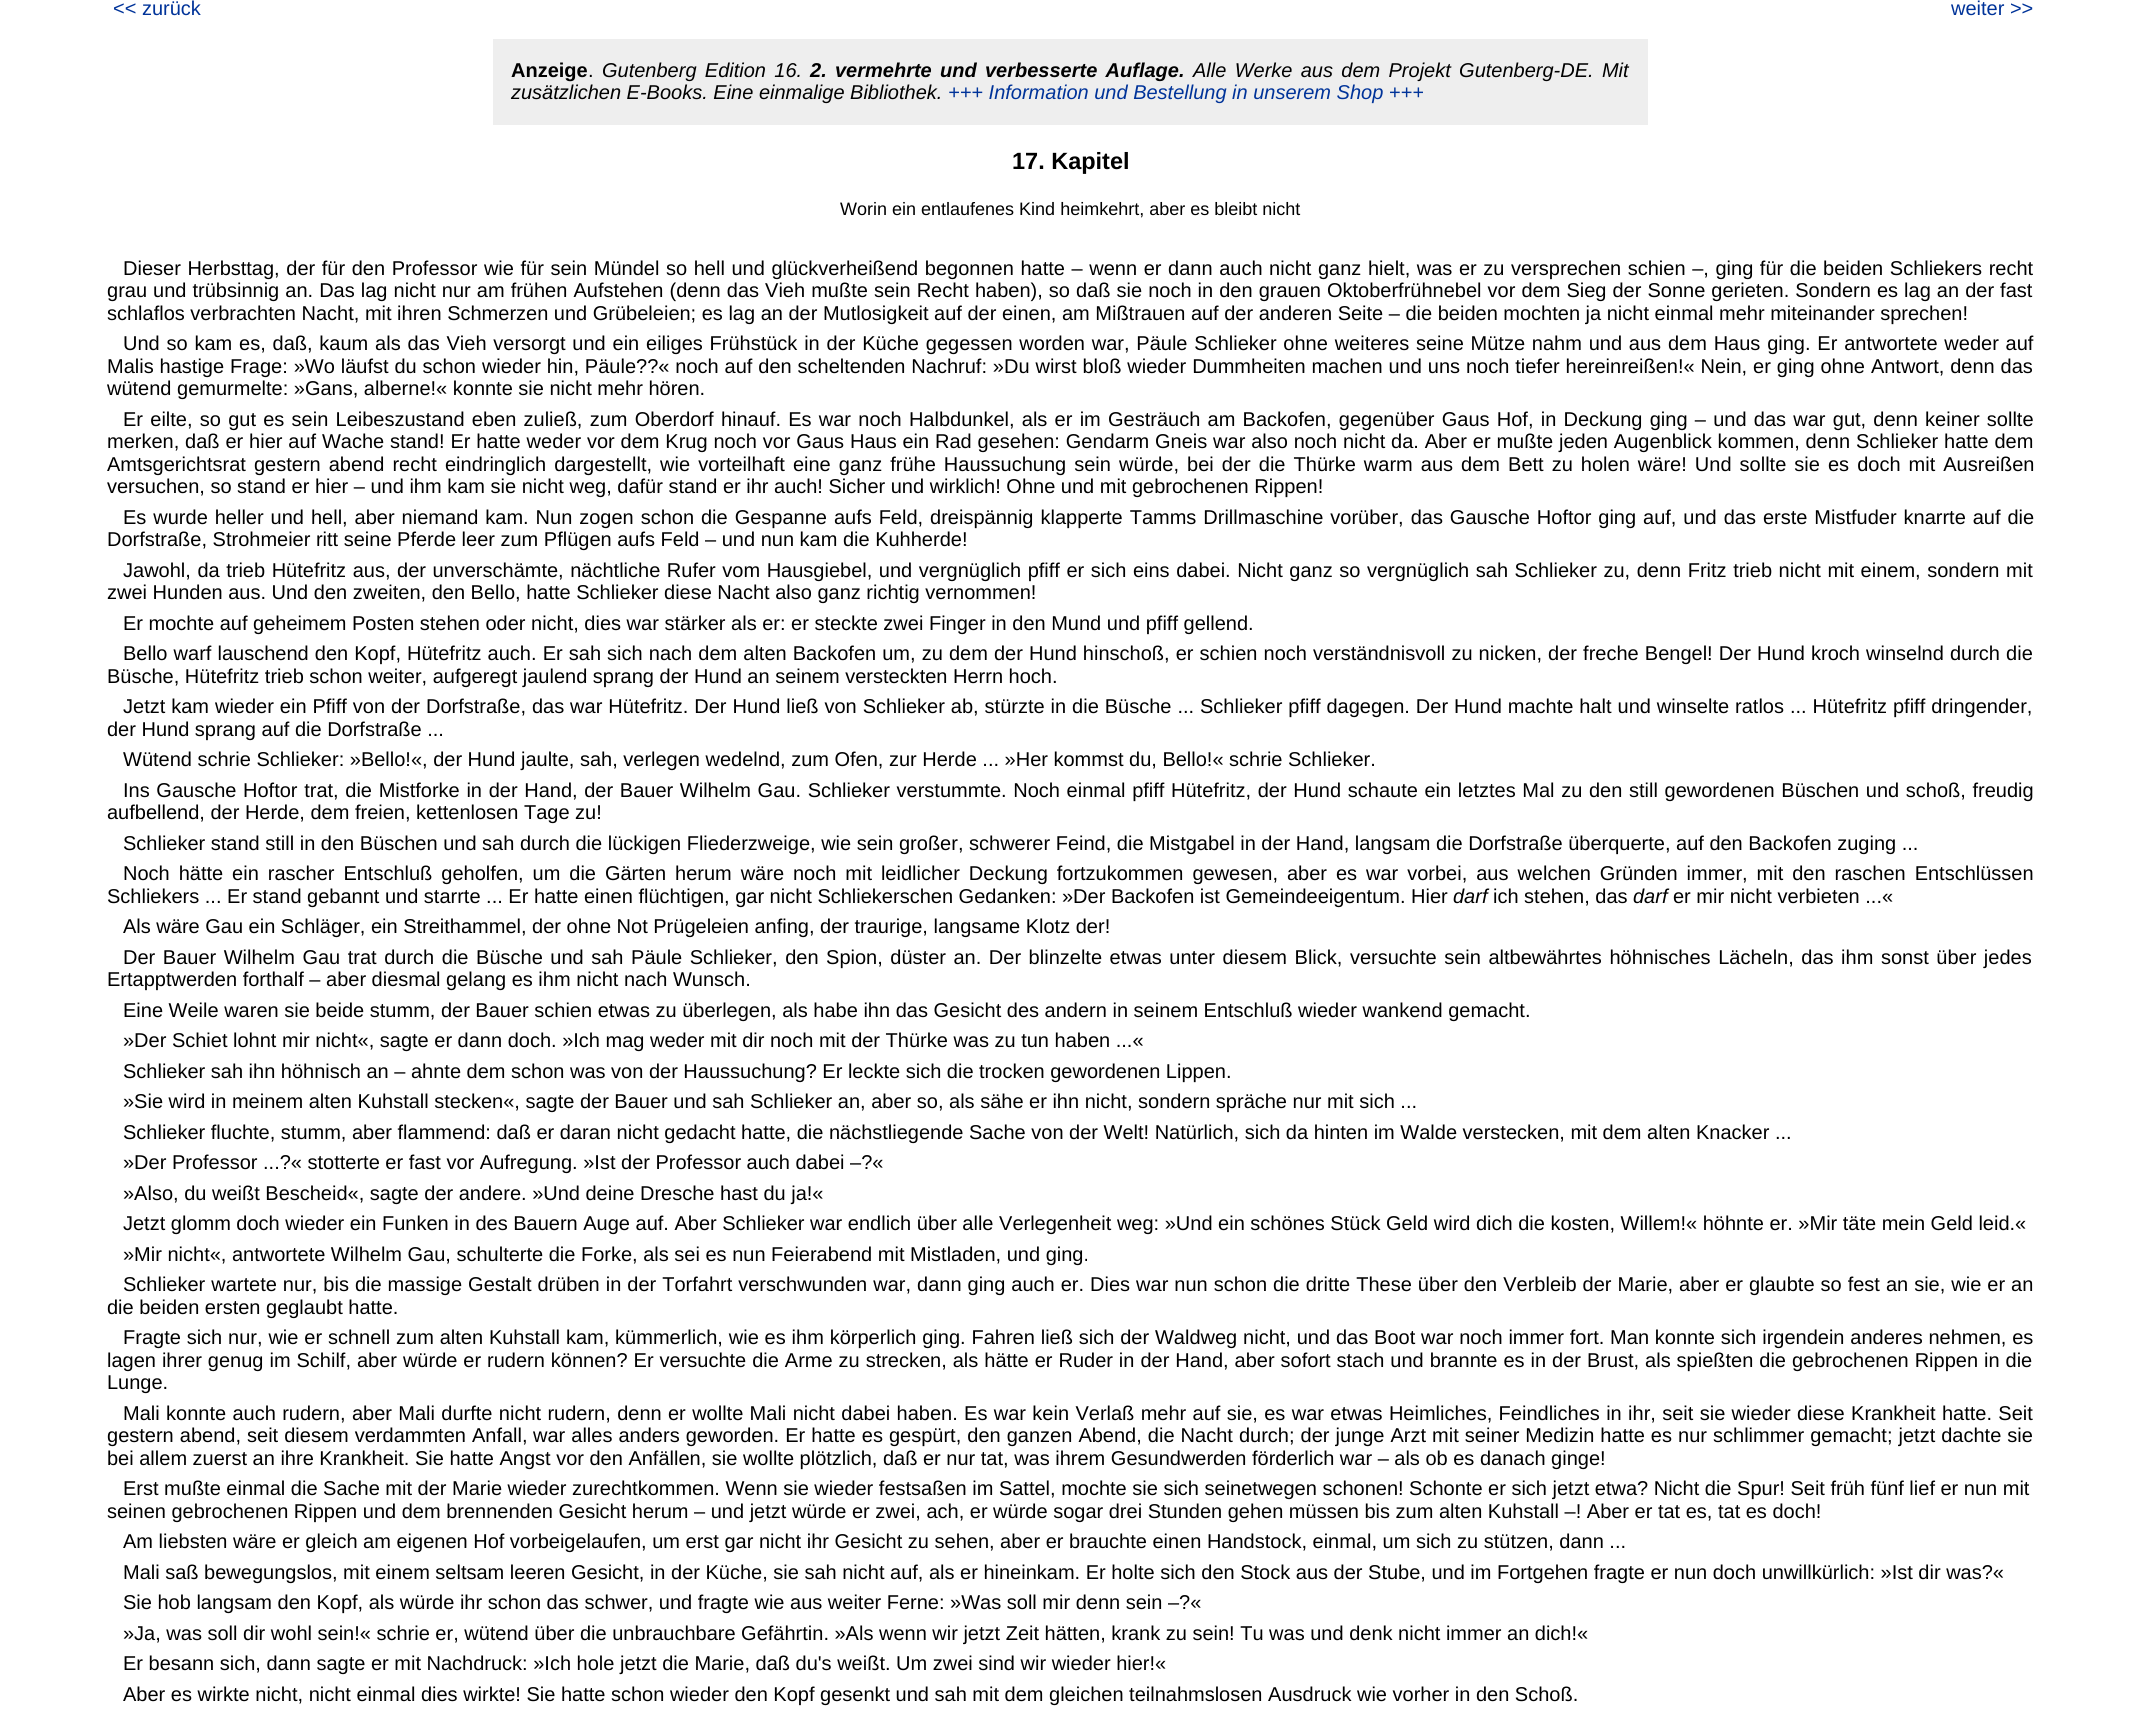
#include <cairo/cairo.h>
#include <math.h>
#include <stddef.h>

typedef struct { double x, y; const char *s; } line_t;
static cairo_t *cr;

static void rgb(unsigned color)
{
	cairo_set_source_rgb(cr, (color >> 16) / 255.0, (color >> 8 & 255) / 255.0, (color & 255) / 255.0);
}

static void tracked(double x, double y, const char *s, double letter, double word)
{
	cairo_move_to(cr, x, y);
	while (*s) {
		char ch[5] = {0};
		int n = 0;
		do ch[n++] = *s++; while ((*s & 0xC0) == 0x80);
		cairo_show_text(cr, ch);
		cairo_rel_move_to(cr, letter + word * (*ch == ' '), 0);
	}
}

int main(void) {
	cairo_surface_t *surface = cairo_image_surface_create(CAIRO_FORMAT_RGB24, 2139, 1726);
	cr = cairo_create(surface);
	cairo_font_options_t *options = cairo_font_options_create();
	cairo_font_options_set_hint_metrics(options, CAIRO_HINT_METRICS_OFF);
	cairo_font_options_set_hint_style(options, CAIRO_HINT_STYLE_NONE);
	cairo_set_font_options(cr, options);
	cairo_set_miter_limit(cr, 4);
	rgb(0xffffff);
	cairo_paint(cr);
	rgb(0xeeeeee);
	cairo_rectangle(cr, 493, 39, 1155, 86);
	cairo_fill(cr);
	cairo_select_font_face(cr, "Liberation Sans", CAIRO_FONT_SLANT_NORMAL, CAIRO_FONT_WEIGHT_NORMAL);
	cairo_set_font_size(cr, 20);
	rgb(0x003399);
	cairo_move_to(cr, 113, 15);
	cairo_show_text(cr, "<< zurück");
	cairo_move_to(cr, 1951, 15);
	cairo_show_text(cr, "weiter >>");
	cairo_select_font_face(cr, "Liberation Sans", CAIRO_FONT_SLANT_NORMAL, CAIRO_FONT_WEIGHT_BOLD);
	rgb(0x000000);
	cairo_move_to(cr, 511, 77);
	cairo_show_text(cr, "Anzeige");
	cairo_select_font_face(cr, "Liberation Sans", CAIRO_FONT_SLANT_NORMAL, CAIRO_FONT_WEIGHT_NORMAL);
	cairo_move_to(cr, 588, 77);
	cairo_show_text(cr, ".");
	cairo_select_font_face(cr, "Liberation Sans", CAIRO_FONT_SLANT_ITALIC, CAIRO_FONT_WEIGHT_NORMAL);
	tracked(602, 77, "Gutenberg Edition 16.", 0, 2.75);
	cairo_select_font_face(cr, "Liberation Sans", CAIRO_FONT_SLANT_ITALIC, CAIRO_FONT_WEIGHT_BOLD);
	tracked(810, 77, "2. vermehrte und verbesserte Auflage.", 0, 2.75);
	cairo_select_font_face(cr, "Liberation Sans", CAIRO_FONT_SLANT_ITALIC, CAIRO_FONT_WEIGHT_NORMAL);
	tracked(1193, 77, "Alle Werke aus dem Projekt Gutenberg-DE. Mit", 0, 2.75);
	cairo_move_to(cr, 511, 99);
	cairo_show_text(cr, "zusätzlichen E-Books. Eine einmalige Bibliothek.");
	rgb(0x003399);
	cairo_move_to(cr, 948, 99);
	cairo_show_text(cr, "+++ Information und Bestellung in unserem Shop +++");
	cairo_select_font_face(cr, "Liberation Sans", CAIRO_FONT_SLANT_NORMAL, CAIRO_FONT_WEIGHT_BOLD);
	cairo_set_font_size(cr, 23.5);
	rgb(0x000000);
	cairo_move_to(cr, 1012, 169);
	cairo_show_text(cr, "17. Kapitel");
	cairo_select_font_face(cr, "Liberation Sans", CAIRO_FONT_SLANT_NORMAL, CAIRO_FONT_WEIGHT_NORMAL);
	cairo_set_font_size(cr, 18);
	cairo_move_to(cr, 840, 215);
	cairo_show_text(cr, "Worin ein entlaufenes Kind heimkehrt, aber es bleibt nicht");
	cairo_set_font_size(cr, 20);
	tracked(123, 275, "Dieser Herbsttag, der für den Professor wie für sein Mündel so hell und glückverheißend begonnen hatte – wenn er dann auch nicht ganz hielt, was er zu versprechen schien –, ging für die beiden Schliekers recht", 0, 1.05);
	tracked(107, 297, "grau und trübsinnig an. Das lag nicht nur am frühen Aufstehen (denn das Vieh mußte sein Recht haben), so daß sie noch in den grauen Oktoberfrühnebel vor dem Sieg der Sonne gerieten. Sondern es lag an der fast", 0, 0.5);
	cairo_move_to(cr, 107, 320);
	cairo_show_text(cr, "schlaflos verbrachten Nacht, mit ihren Schmerzen und Grübeleien; es lag an der Mutlosigkeit auf der einen, am Mißtrauen auf der anderen Seite – die beiden mochten ja nicht einmal mehr miteinander sprechen!");
	tracked(123, 350, "Und so kam es, daß, kaum als das Vieh versorgt und ein eiliges Frühstück in der Küche gegessen worden war, Päule Schlieker ohne weiteres seine Mütze nahm und aus dem Haus ging. Er antwortete weder auf", 0, 1.25);
	tracked(107, 373, "Malis hastige Frage: »Wo läufst du schon wieder hin, Päule?\077« noch auf den scheltenden Nachruf: »Du wirst bloß wieder Dummheiten machen und uns noch tiefer hereinreißen!« Nein, er ging ohne Antwort, denn das", 0, 0.35);
	cairo_move_to(cr, 107, 395);
	cairo_show_text(cr, "wütend gemurmelte: »Gans, alberne!« konnte sie nicht mehr hören.");
	tracked(123, 426, "Er eilte, so gut es sein Leibeszustand eben zuließ, zum Oberdorf hinauf. Es war noch Halbdunkel, als er im Gesträuch am Backofen, gegenüber Gaus Hof, in Deckung ging – und das war gut, denn keiner sollte", 0, 1.7);
	tracked(107, 448, "merken, daß er hier auf Wache stand! Er hatte weder vor dem Krug noch vor Gaus Haus ein Rad gesehen: Gendarm Gneis war also noch nicht da. Aber er mußte jeden Augenblick kommen, denn Schlieker hatte dem", 0, 0.3);
	tracked(107, 471, "Amtsgerichtsrat gestern abend recht eindringlich dargestellt, wie vorteilhaft eine ganz frühe Haussuchung sein würde, bei der die Thürke warm aus dem Bett zu holen wäre! Und sollte sie es doch mit Ausreißen", 0, 2.5);
	cairo_move_to(cr, 107, 493);
	cairo_show_text(cr, "versuchen, so stand er hier – und ihm kam sie nicht weg, dafür stand er ihr auch! Sicher und wirklich! Ohne und mit gebrochenen Rippen!");
	tracked(123, 524, "Es wurde heller und hell, aber niemand kam. Nun zogen schon die Gespanne aufs Feld, dreispännig klapperte Tamms Drillmaschine vorüber, das Gausche Hoftor ging auf, und das erste Mistfuder knarrte auf die", 0, 1.4);
	cairo_move_to(cr, 107, 546);
	cairo_show_text(cr, "Dorfstraße, Strohmeier ritt seine Pferde leer zum Pflügen aufs Feld – und nun kam die Kuhherde!");
	tracked(123, 577, "Jawohl, da trieb Hütefritz aus, der unverschämte, nächtliche Rufer vom Hausgiebel, und vergnüglich pfiff er sich eins dabei. Nicht ganz so vergnüglich sah Schlieker zu, denn Fritz trieb nicht mit einem, sondern mit", 0, 1);
	cairo_move_to(cr, 107, 599);
	cairo_show_text(cr, "zwei Hunden aus. Und den zweiten, den Bello, hatte Schlieker diese Nacht also ganz richtig vernommen!");
	cairo_move_to(cr, 123, 630);
	cairo_show_text(cr, "Er mochte auf geheimem Posten stehen oder nicht, dies war stärker als er: er steckte zwei Finger in den Mund und pfiff gellend.");
	tracked(123, 660, "Bello warf lauschend den Kopf, Hütefritz auch. Er sah sich nach dem alten Backofen um, zu dem der Hund hinschoß, er schien noch verständnisvoll zu nicken, der freche Bengel! Der Hund kroch winselnd durch die", 0, 0.55);
	cairo_move_to(cr, 107, 683);
	cairo_show_text(cr, "Büsche, Hütefritz trieb schon weiter, aufgeregt jaulend sprang der Hund an seinem versteckten Herrn hoch.");
	tracked(123, 713, "Jetzt kam wieder ein Pfiff von der Dorfstraße, das war Hütefritz. Der Hund ließ von Schlieker ab, stürzte in die Büsche ... Schlieker pfiff dagegen. Der Hund machte halt und winselte ratlos ... Hütefritz pfiff dringender,", 0, 0.4);
	cairo_move_to(cr, 107, 736);
	cairo_show_text(cr, "der Hund sprang auf die Dorfstraße ...");
	cairo_move_to(cr, 123, 766);
	cairo_show_text(cr, "Wütend schrie Schlieker: »Bello!«, der Hund jaulte, sah, verlegen wedelnd, zum Ofen, zur Herde ... »Her kommst du, Bello!« schrie Schlieker.");
	tracked(123, 797, "Ins Gausche Hoftor trat, die Mistforke in der Hand, der Bauer Wilhelm Gau. Schlieker verstummte. Noch einmal pfiff Hütefritz, der Hund schaute ein letztes Mal zu den still gewordenen Büschen und schoß, freudig", 0, 1.1);
	cairo_move_to(cr, 107, 819);
	cairo_show_text(cr, "aufbellend, der Herde, dem freien, kettenlosen Tage zu!");
	cairo_move_to(cr, 123, 850);
	cairo_show_text(cr, "Schlieker stand still in den Büschen und sah durch die lückigen Fliederzweige, wie sein großer, schwerer Feind, die Mistgabel in der Hand, langsam die Dorfstraße überquerte, auf den Backofen zuging ...");
	tracked(123, 880, "Noch hätte ein rascher Entschluß geholfen, um die Gärten herum wäre noch mit leidlicher Deckung fortzukommen gewesen, aber es war vorbei, aus welchen Gründen immer, mit den raschen Entschlüssen", 0, 3.4);
	cairo_move_to(cr, 107, 903);
	cairo_show_text(cr, "Schliekers ... Er stand gebannt und starrte ... Er hatte einen flüchtigen, gar nicht Schliekerschen Gedanken: »Der Backofen ist Gemeindeeigentum. Hier");
	cairo_select_font_face(cr, "Liberation Sans", CAIRO_FONT_SLANT_ITALIC, CAIRO_FONT_WEIGHT_NORMAL);
	cairo_move_to(cr, 1453, 903);
	cairo_show_text(cr, "darf");
	cairo_select_font_face(cr, "Liberation Sans", CAIRO_FONT_SLANT_NORMAL, CAIRO_FONT_WEIGHT_NORMAL);
	cairo_move_to(cr, 1493, 903);
	cairo_show_text(cr, "ich stehen, das");
	cairo_select_font_face(cr, "Liberation Sans", CAIRO_FONT_SLANT_ITALIC, CAIRO_FONT_WEIGHT_NORMAL);
	cairo_move_to(cr, 1633, 903);
	cairo_show_text(cr, "darf");
	cairo_select_font_face(cr, "Liberation Sans", CAIRO_FONT_SLANT_NORMAL, CAIRO_FONT_WEIGHT_NORMAL);
	cairo_move_to(cr, 1673, 903);
	cairo_show_text(cr, "er mir nicht verbieten ...«");
	cairo_move_to(cr, 123, 933);
	cairo_show_text(cr, "Als wäre Gau ein Schläger, ein Streithammel, der ohne Not Prügeleien anfing, der traurige, langsame Klotz der!");
	tracked(123, 964, "Der Bauer Wilhelm Gau trat durch die Büsche und sah Päule Schlieker, den Spion, düster an. Der blinzelte etwas unter diesem Blick, versuchte sein altbewährtes höhnisches Lächeln, das ihm sonst über jedes", 0, 2);
	{
		static const line_t items[] = {
			{107, 986, "Ertapptwerden forthalf – aber diesmal gelang es ihm nicht nach Wunsch."},
			{123, 1017, "Eine Weile waren sie beide stumm, der Bauer schien etwas zu überlegen, als habe ihn das Gesicht des andern in seinem Entschluß wieder wankend gemacht."},
			{123, 1047, "»Der Schiet lohnt mir nicht«, sagte er dann doch. »Ich mag weder mit dir noch mit der Thürke was zu tun haben ...«"},
			{123, 1078, "Schlieker sah ihn höhnisch an – ahnte dem schon was von der Haussuchung? Er leckte sich die trocken gewordenen Lippen."},
			{123, 1108, "»Sie wird in meinem alten Kuhstall stecken«, sagte der Bauer und sah Schlieker an, aber so, als sähe er ihn nicht, sondern spräche nur mit sich ..."},
			{123, 1139, "Schlieker fluchte, stumm, aber flammend: daß er daran nicht gedacht hatte, die nächstliegende Sache von der Welt! Natürlich, sich da hinten im Walde verstecken, mit dem alten Knacker ..."},
			{123, 1169, "»Der Professor ...?« stotterte er fast vor Aufregung. »Ist der Professor auch dabei –?«"},
			{123, 1200, "»Also, du weißt Bescheid«, sagte der andere. »Und deine Dresche hast du ja!«"},
			{123, 1230, "Jetzt glomm doch wieder ein Funken in des Bauern Auge auf. Aber Schlieker war endlich über alle Verlegenheit weg: »Und ein schönes Stück Geld wird dich die kosten, Willem!« höhnte er. »Mir täte mein Geld leid.«"},
			{123, 1261, "»Mir nicht«, antwortete Wilhelm Gau, schulterte die Forke, als sei es nun Feierabend mit Mistladen, und ging."},
		};
		for (size_t i = 0; i < sizeof items / sizeof *items; i++) {
			cairo_move_to(cr, items[i].x, items[i].y);
			cairo_show_text(cr, items[i].s);
		}
	}
	tracked(123, 1291, "Schlieker wartete nur, bis die massige Gestalt drüben in der Torfahrt verschwunden war, dann ging auch er. Dies war nun schon die dritte These über den Verbleib der Marie, aber er glaubte so fest an sie, wie er an", 0, 0.45);
	cairo_move_to(cr, 107, 1314);
	cairo_show_text(cr, "die beiden ersten geglaubt hatte.");
	tracked(123, 1344, "Fragte sich nur, wie er schnell zum alten Kuhstall kam, kümmerlich, wie es ihm körperlich ging. Fahren ließ sich der Waldweg nicht, und das Boot war noch immer fort. Man konnte sich irgendein anderes nehmen, es", 0, 0.3);
	tracked(107, 1367, "lagen ihrer genug im Schilf, aber würde er rudern können? Er versuchte die Arme zu strecken, als hätte er Ruder in der Hand, aber sofort stach und brannte es in der Brust, als spießten die gebrochenen Rippen in die", 0, 0.4);
	cairo_move_to(cr, 107, 1389);
	cairo_show_text(cr, "Lunge.");
	tracked(123, 1420, "Mali konnte auch rudern, aber Mali durfte nicht rudern, denn er wollte Mali nicht dabei haben. Es war kein Verlaß mehr auf sie, es war etwas Heimliches, Feindliches in ihr, seit sie wieder diese Krankheit hatte. Seit", 0, 0.8);
	tracked(107, 1442, "gestern abend, seit diesem verdammten Anfall,", 0, 0.5);
	tracked(533, 1442, "war alles anders geworden. Er hatte es gespürt, den ganzen Abend, die Nacht durch; der junge Arzt mit seiner Medizin hatte es nur schlimmer gemacht; jetzt dachte sie", 0, 0.5);
	{
		static const line_t items[] = {
			{107, 1465, "bei allem zuerst an ihre Krankheit. Sie hatte Angst vor den Anfällen, sie wollte plötzlich, daß er nur tat, was ihrem Gesundwerden förderlich war – als ob es danach ginge!"},
			{123, 1495, "Erst mußte einmal die Sache mit der Marie wieder zurechtkommen. Wenn sie wieder festsaßen im Sattel, mochte sie sich seinetwegen schonen! Schonte er sich jetzt etwa? Nicht die Spur! Seit früh fünf lief er nun mit"},
			{107, 1518, "seinen gebrochenen Rippen und dem brennenden Gesicht herum – und jetzt würde er zwei, ach, er würde sogar drei Stunden gehen müssen bis zum alten Kuhstall –! Aber er tat es, tat es doch!"},
			{123, 1548, "Am liebsten wäre er gleich am eigenen Hof vorbeigelaufen, um erst gar nicht ihr Gesicht zu sehen, aber er brauchte einen Handstock, einmal, um sich zu stützen, dann ..."},
			{123, 1579, "Mali saß bewegungslos, mit einem seltsam leeren Gesicht, in der Küche, sie sah nicht auf, als er hineinkam. Er holte sich den Stock aus der Stube, und im Fortgehen fragte er nun doch unwillkürlich: »Ist dir was?«"},
			{123, 1609, "Sie hob langsam den Kopf, als würde ihr schon das schwer, und fragte wie aus weiter Ferne: »Was soll mir denn sein –?«"},
			{123, 1640, "»Ja, was soll dir wohl sein!« schrie er, wütend über die unbrauchbare Gefährtin. »Als wenn wir jetzt Zeit hätten, krank zu sein! Tu was und denk nicht immer an dich!«"},
			{123, 1670, "Er besann sich, dann sagte er mit Nachdruck: »Ich hole jetzt die Marie, daß du's weißt. Um zwei sind wir wieder hier!«"},
			{123, 1701, "Aber es wirkte nicht, nicht einmal dies wirkte! Sie hatte schon wieder den Kopf gesenkt und sah mit dem gleichen teilnahmslosen Ausdruck wie vorher in den Schoß."},
		};
		for (size_t i = 0; i < sizeof items / sizeof *items; i++) {
			cairo_move_to(cr, items[i].x, items[i].y);
			cairo_show_text(cr, items[i].s);
		}
	}
	cairo_surface_write_to_png(surface, "page.png");
	cairo_font_options_destroy(options);
	cairo_destroy(cr);
	cairo_surface_destroy(surface);
	return 0;
}
